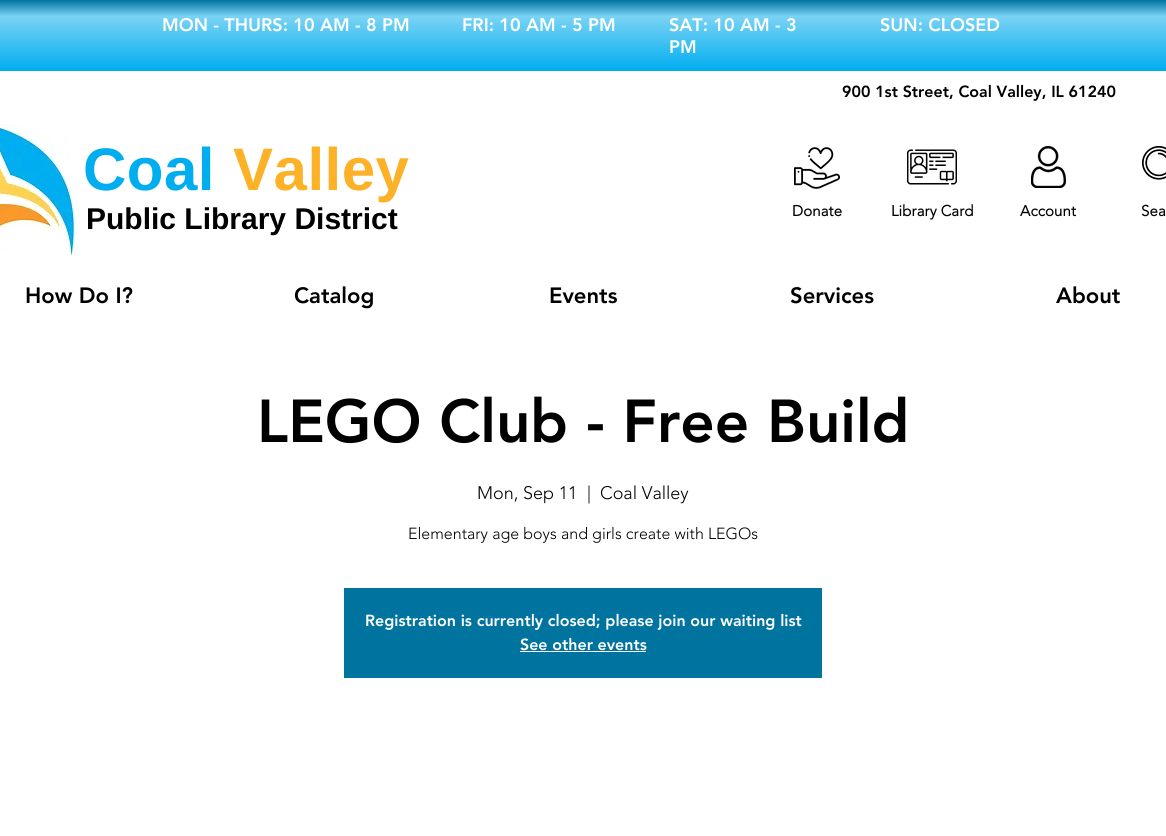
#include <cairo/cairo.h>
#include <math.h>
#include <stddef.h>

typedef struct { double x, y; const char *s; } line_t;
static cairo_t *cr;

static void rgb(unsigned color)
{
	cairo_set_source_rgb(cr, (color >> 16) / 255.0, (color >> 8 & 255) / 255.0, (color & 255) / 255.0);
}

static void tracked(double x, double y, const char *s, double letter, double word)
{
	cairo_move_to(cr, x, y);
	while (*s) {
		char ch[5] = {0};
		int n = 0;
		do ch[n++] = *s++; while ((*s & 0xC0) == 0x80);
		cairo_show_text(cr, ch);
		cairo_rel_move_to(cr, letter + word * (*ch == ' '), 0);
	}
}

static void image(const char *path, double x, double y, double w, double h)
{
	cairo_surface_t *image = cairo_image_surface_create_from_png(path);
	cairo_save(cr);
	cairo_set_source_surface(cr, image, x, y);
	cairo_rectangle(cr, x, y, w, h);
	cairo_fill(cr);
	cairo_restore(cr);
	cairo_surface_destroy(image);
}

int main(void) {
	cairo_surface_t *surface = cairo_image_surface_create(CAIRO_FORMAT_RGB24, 1166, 836);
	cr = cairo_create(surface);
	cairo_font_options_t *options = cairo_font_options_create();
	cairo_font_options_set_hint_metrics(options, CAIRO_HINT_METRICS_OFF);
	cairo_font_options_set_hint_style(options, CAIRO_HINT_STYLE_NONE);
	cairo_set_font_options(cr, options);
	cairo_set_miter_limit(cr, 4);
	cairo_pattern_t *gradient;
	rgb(0xffffff);
	cairo_paint(cr);
	gradient = cairo_pattern_create_linear(583, 71, 583, 0);
	cairo_pattern_add_color_stop_rgba(gradient, 0, 0, 0.678, 0.937, 1);
	cairo_pattern_add_color_stop_rgba(gradient, 0.77, 0.478, 0.827, 0.957, 1);
	cairo_pattern_add_color_stop_rgba(gradient, 1, 0, 0.451, 0.624, 1);
	cairo_set_source(cr, gradient);
	cairo_pattern_destroy(gradient);
	cairo_rectangle(cr, 0, 0, 1166, 71);
	cairo_fill(cr);
	image("img/1.png", 0, 124, 78, 131);
	image("img/2.png", 794, 147, 46, 42);
	image("img/3.png", 907, 149, 50, 36);
	image("img/4.png", 1031, 146, 35, 42);
	image("img/5.png", 1142, 146, 24, 34);
	rgb(0x00739f);
	cairo_rectangle(cr, 344, 588, 478, 90);
	cairo_fill(cr);
	rgb(0xffffff);
	cairo_rectangle(cr, 520, 651, 126, 1);
	cairo_fill(cr);
	cairo_select_font_face(cr, "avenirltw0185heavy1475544 Black", CAIRO_FONT_SLANT_NORMAL, CAIRO_FONT_WEIGHT_NORMAL);
	cairo_set_font_size(cr, 18);
	{
		static const line_t items[] = {
			{162, 31, "MON - THURS: 10 AM - 8 PM"},
			{462, 31, "FRI: 10 AM - 5 PM"},
			{669, 31, "SAT: 10 AM - 3"},
			{669, 53, "PM"},
			{880, 31, "SUN: CLOSED"},
		};
		for (size_t i = 0; i < sizeof items / sizeof *items; i++) {
			cairo_move_to(cr, items[i].x, items[i].y);
			cairo_show_text(cr, items[i].s);
		}
	}
	cairo_set_font_size(cr, 16);
	rgb(0x000000);
	cairo_move_to(cr, 842, 97);
	cairo_show_text(cr, "900 1st Street, Coal Valley, IL 61240");
	cairo_select_font_face(cr, "Liberation Sans", CAIRO_FONT_SLANT_NORMAL, CAIRO_FONT_WEIGHT_BOLD);
	cairo_set_font_size(cr, 60);
	rgb(0x00adef);
	tracked(83, 190, "Coal", 0.5, 0);
	rgb(0xfdb126);
	tracked(233, 190, "Valley", 0.5, 0);
	cairo_set_font_size(cr, 30);
	rgb(0x000000);
	cairo_move_to(cr, 86, 229);
	cairo_show_text(cr, "Public Library District");
	cairo_select_font_face(cr, "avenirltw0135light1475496", CAIRO_FONT_SLANT_NORMAL, CAIRO_FONT_WEIGHT_BOLD);
	cairo_set_font_size(cr, 15);
	{
		static const line_t items[] = {
			{792, 216, "Donate"},
			{891, 216, "Library Card"},
			{1020, 216, "Account"},
			{1141, 216, "Sea"},
		};
		for (size_t i = 0; i < sizeof items / sizeof *items; i++) {
			tracked(items[i].x, items[i].y, items[i].s, 0.1, 0);
		}
	}
	cairo_select_font_face(cr, "avenirltw0185heavy1475544 Black", CAIRO_FONT_SLANT_NORMAL, CAIRO_FONT_WEIGHT_NORMAL);
	cairo_set_font_size(cr, 22);
	{
		static const line_t items[] = {
			{25, 303, "How Do I?"},
			{294, 303, "Catalog"},
			{549, 303, "Events"},
			{790, 303, "Services"},
			{1056, 303, "About"},
		};
		for (size_t i = 0; i < sizeof items / sizeof *items; i++) {
			cairo_move_to(cr, items[i].x, items[i].y);
			cairo_show_text(cr, items[i].s);
		}
	}
	cairo_set_font_size(cr, 60);
	cairo_move_to(cr, 257, 442);
	cairo_show_text(cr, "LEGO Club - Free Build");
	cairo_select_font_face(cr, "avenirltw0135light1475496 Light", CAIRO_FONT_SLANT_NORMAL, CAIRO_FONT_WEIGHT_NORMAL);
	cairo_set_font_size(cr, 18);
	{
		static const line_t items[] = {
			{477, 499, "Mon, Sep 11"},
			{587, 499, "|"},
			{600, 499, "Coal Valley"},
		};
		for (size_t i = 0; i < sizeof items / sizeof *items; i++) {
			cairo_move_to(cr, items[i].x, items[i].y);
			cairo_show_text(cr, items[i].s);
		}
	}
	cairo_set_font_size(cr, 16);
	cairo_move_to(cr, 408, 539);
	cairo_show_text(cr, "Elementary age boys and girls create with LEGOs");
	cairo_select_font_face(cr, "avenirltw0185heavy1475544 Black", CAIRO_FONT_SLANT_NORMAL, CAIRO_FONT_WEIGHT_NORMAL);
	rgb(0xffffff);
	cairo_move_to(cr, 365, 626);
	cairo_show_text(cr, "Registration is currently closed; please join our waiting list");
	cairo_move_to(cr, 520, 650);
	cairo_show_text(cr, "See other events");
	cairo_surface_write_to_png(surface, "page.png");
	cairo_font_options_destroy(options);
	cairo_destroy(cr);
	cairo_surface_destroy(surface);
	return 0;
}
